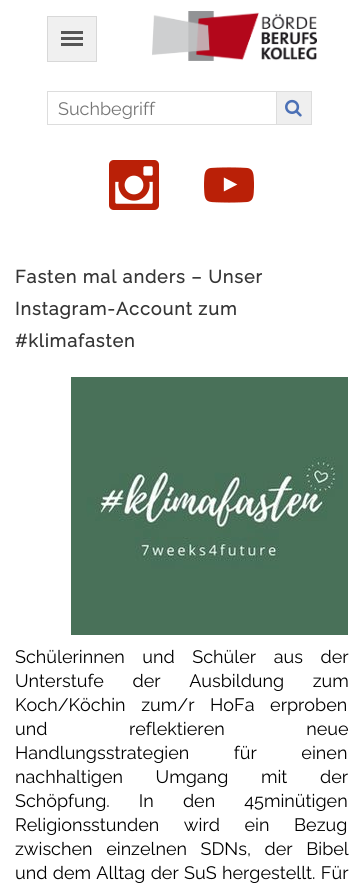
#include <cairo/cairo.h>
#include <math.h>
#include <stddef.h>

typedef struct { double x, y; const char *s; } line_t;
typedef struct { double x, y, w, h; unsigned color; } box_t;
static cairo_t *cr;

static void rgb(unsigned color)
{
	cairo_set_source_rgb(cr, (color >> 16) / 255.0, (color >> 8 & 255) / 255.0, (color & 255) / 255.0);
}

static void tracked(double x, double y, const char *s, double letter, double word)
{
	cairo_move_to(cr, x, y);
	while (*s) {
		char ch[5] = {0};
		int n = 0;
		do ch[n++] = *s++; while ((*s & 0xC0) == 0x80);
		cairo_show_text(cr, ch);
		cairo_rel_move_to(cr, letter + word * (*ch == ' '), 0);
	}
}

static void image(const char *path, double x, double y, double w, double h)
{
	cairo_surface_t *image = cairo_image_surface_create_from_png(path);
	cairo_save(cr);
	cairo_set_source_surface(cr, image, x, y);
	cairo_rectangle(cr, x, y, w, h);
	cairo_fill(cr);
	cairo_restore(cr);
	cairo_surface_destroy(image);
}

int main(void) {
	cairo_surface_t *surface = cairo_image_surface_create(CAIRO_FORMAT_RGB24, 363, 893);
	cr = cairo_create(surface);
	cairo_font_options_t *options = cairo_font_options_create();
	cairo_font_options_set_hint_metrics(options, CAIRO_HINT_METRICS_OFF);
	cairo_font_options_set_hint_style(options, CAIRO_HINT_STYLE_NONE);
	cairo_set_font_options(cr, options);
	cairo_set_miter_limit(cr, 4);
	rgb(0xffffff);
	cairo_paint(cr);
	rgb(0xf0f0f0);
	cairo_rectangle(cr, 47.5, 16.5, 49, 45);
	cairo_fill_preserve(cr);
	rgb(0xd8d8d8);
	cairo_set_line_width(cr, 1);
	cairo_stroke(cr);
	{
		static const box_t items[] = {
			{61, 31, 22, 3, 0x555555},
			{61, 37, 22, 3, 0x555555},
			{61, 43, 22, 3, 0x555555},
		};
		for (size_t i = 0; i < sizeof items / sizeof *items; i++) {
			rgb(items[i].color);
			cairo_rectangle(cr, items[i].x, items[i].y, items[i].w, items[i].h);
			cairo_fill(cr);
		}
	}
	image("img/1.png", 152, 11, 165, 50);
	cairo_rectangle(cr, 47.5, 91.5, 229, 33);
	rgb(0xdddddd);
	cairo_stroke(cr);
	{
		static const box_t items[] = {
			{277, 92, 34, 32, 0xefefef},
			{277, 91, 35, 1, 0xdddddd},
			{311, 91, 1, 34, 0xdddddd},
			{277, 124, 35, 1, 0xdddddd},
		};
		for (size_t i = 0; i < sizeof items / sizeof *items; i++) {
			rgb(items[i].color);
			cairo_rectangle(cr, items[i].x, items[i].y, items[i].w, items[i].h);
			cairo_fill(cr);
		}
	}
	image("img/2.png", 285, 99, 17, 18);
	image("img/3.png", 109, 160, 50, 50);
	image("img/4.png", 204, 167, 50, 36);
	image("img/5.png", 71, 377, 277, 258);
	cairo_select_font_face(cr, "Raleway", CAIRO_FONT_SLANT_NORMAL, CAIRO_FONT_WEIGHT_NORMAL);
	cairo_set_font_size(cr, 18);
	rgb(0x757575);
	cairo_move_to(cr, 58, 115);
	cairo_show_text(cr, "Suchbegriff");
	cairo_select_font_face(cr, "Raleway", CAIRO_FONT_SLANT_NORMAL, CAIRO_FONT_WEIGHT_BOLD);
	rgb(0x353535);
	{
		static const line_t items[] = {
			{15, 283, "Fasten mal anders – Unser"},
			{15, 315, "Instagram-Account zum"},
			{15, 347, "#klimafasten"},
		};
		for (size_t i = 0; i < sizeof items / sizeof *items; i++) {
			tracked(items[i].x, items[i].y, items[i].s, 1, 0);
		}
	}
	cairo_select_font_face(cr, "Raleway", CAIRO_FONT_SLANT_NORMAL, CAIRO_FONT_WEIGHT_NORMAL);
	rgb(0x000000);
	tracked(15, 663, "Schülerinnen und Schüler aus der", 0, 13);
	tracked(15, 687, "Unterstufe der Ausbildung zum", 0, 24);
	tracked(15, 711, "Koch/Köchin zum/r HoFa erproben", 0, 11);
	tracked(15, 735, "und reflektieren neue", 0, 77);
	tracked(15, 759, "Handlungsstrategien für einen", 0, 40);
	tracked(15, 783, "nachhaltigen Umgang mit der", 0, 28);
	tracked(15, 807, "Schöpfung. In den 45minütigen", 0, 24.5);
	tracked(15, 831, "Religionsstunden wird ein Bezug", 0, 20);
	tracked(15, 855, "zwischen einzelnen SDNs, der Bibel", 0, 9);
	tracked(15, 879, "und dem Alltag der SuS hergestellt. Für", 0, 0.75);
	cairo_surface_write_to_png(surface, "page.png");
	cairo_font_options_destroy(options);
	cairo_destroy(cr);
	cairo_surface_destroy(surface);
	return 0;
}
